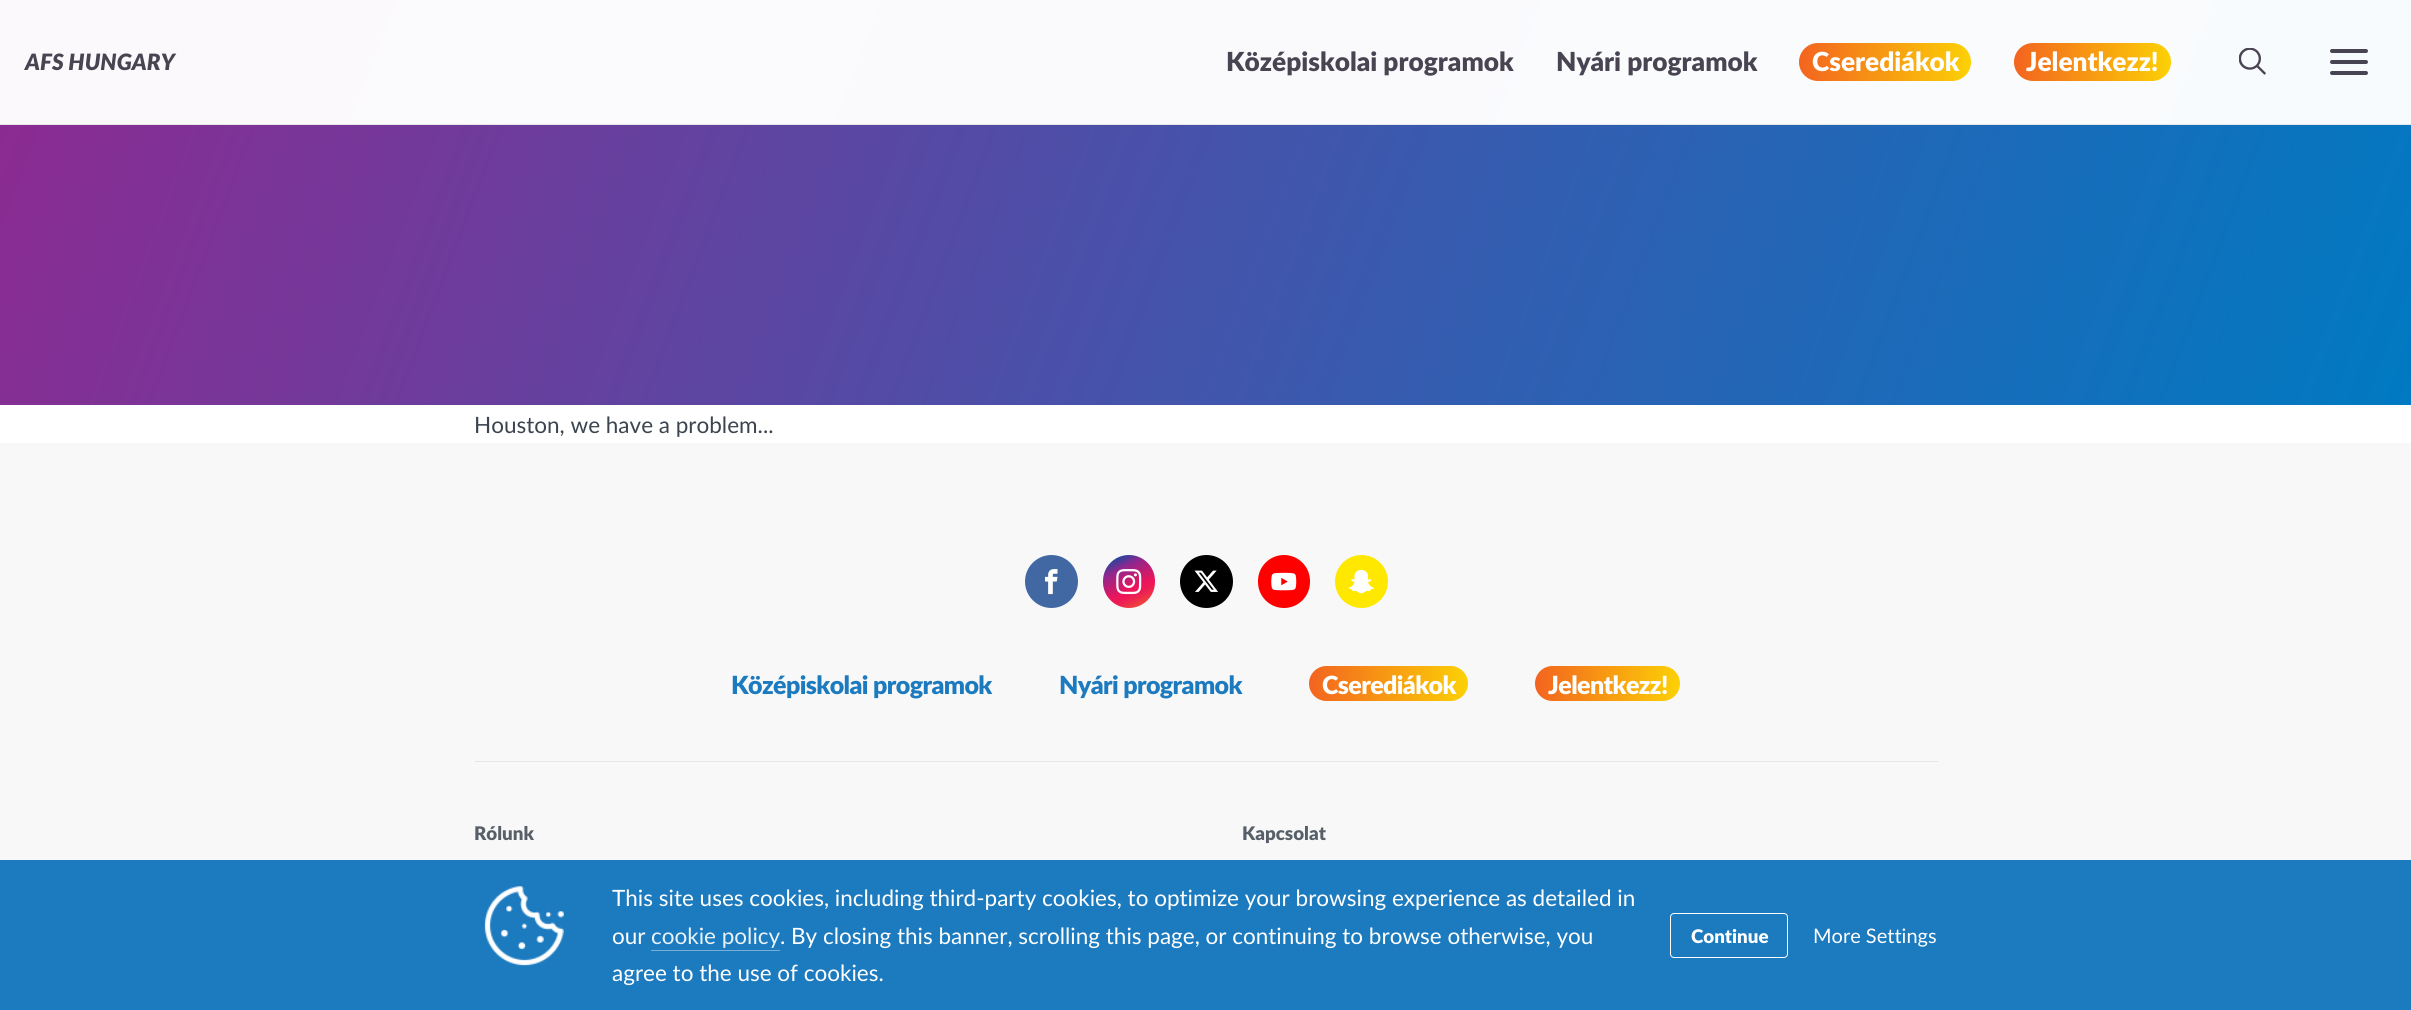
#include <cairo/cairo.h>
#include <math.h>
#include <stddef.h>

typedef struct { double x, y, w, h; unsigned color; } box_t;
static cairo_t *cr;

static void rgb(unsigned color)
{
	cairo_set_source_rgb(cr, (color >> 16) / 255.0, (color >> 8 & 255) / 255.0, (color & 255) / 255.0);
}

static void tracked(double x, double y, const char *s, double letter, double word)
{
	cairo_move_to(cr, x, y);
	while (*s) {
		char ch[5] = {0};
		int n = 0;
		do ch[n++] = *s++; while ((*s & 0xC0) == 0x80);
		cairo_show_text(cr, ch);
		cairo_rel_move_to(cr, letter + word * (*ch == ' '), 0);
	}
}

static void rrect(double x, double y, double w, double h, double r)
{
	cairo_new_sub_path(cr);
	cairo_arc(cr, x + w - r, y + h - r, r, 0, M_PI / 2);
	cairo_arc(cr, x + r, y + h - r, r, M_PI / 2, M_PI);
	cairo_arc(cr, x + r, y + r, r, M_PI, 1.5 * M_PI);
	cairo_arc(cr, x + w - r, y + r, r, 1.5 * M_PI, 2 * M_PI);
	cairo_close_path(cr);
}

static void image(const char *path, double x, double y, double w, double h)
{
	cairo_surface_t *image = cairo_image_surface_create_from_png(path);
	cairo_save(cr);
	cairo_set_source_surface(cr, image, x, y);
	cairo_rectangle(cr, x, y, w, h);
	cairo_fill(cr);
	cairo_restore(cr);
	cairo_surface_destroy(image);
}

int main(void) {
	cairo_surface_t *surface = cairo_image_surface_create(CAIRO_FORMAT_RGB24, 2411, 1010);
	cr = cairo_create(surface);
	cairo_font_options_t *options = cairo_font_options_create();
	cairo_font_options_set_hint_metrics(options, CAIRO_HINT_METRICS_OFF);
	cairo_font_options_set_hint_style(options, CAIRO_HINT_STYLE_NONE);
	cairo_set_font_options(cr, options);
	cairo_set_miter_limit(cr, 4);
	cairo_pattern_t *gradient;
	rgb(0xffffff);
	cairo_paint(cr);
	gradient = cairo_pattern_create_linear(48, -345, 2364, 531);
	cairo_pattern_add_color_stop_rgba(gradient, 0, 0.573, 0.153, 0.561, 1);
	cairo_pattern_add_color_stop_rgba(gradient, 0.62, 0.208, 0.361, 0.69, 1);
	cairo_pattern_add_color_stop_rgba(gradient, 1, 0, 0.478, 0.761, 1);
	cairo_set_source(cr, gradient);
	cairo_pattern_destroy(gradient);
	cairo_rectangle(cr, 0, 0, 2411, 405);
	cairo_fill(cr);
	cairo_set_source_rgba(cr, 1, 1, 1, 0.97);
	cairo_rectangle(cr, 0, 0, 2411, 124);
	cairo_fill(cr);
	gradient = cairo_pattern_create_linear(1799, 61, 1971, 61);
	cairo_pattern_add_color_stop_rgba(gradient, 0, 0.953, 0.392, 0.122, 1);
	cairo_pattern_add_color_stop_rgba(gradient, 1, 0.988, 0.82, 0.02, 1);
	cairo_set_source(cr, gradient);
	cairo_pattern_destroy(gradient);
	rrect(1799, 43, 172, 38, 19);
	cairo_fill(cr);
	gradient = cairo_pattern_create_linear(2014, 61, 2171, 61);
	cairo_pattern_add_color_stop_rgba(gradient, 0, 0.953, 0.392, 0.122, 1);
	cairo_pattern_add_color_stop_rgba(gradient, 1, 0.988, 0.82, 0.02, 1);
	cairo_set_source(cr, gradient);
	cairo_pattern_destroy(gradient);
	rrect(2014, 43, 157, 38, 19);
	cairo_fill(cr);
	image("img/1.png", 2239, 48, 27, 27);
	rgb(0x494452);
	rrect(2330, 60, 38, 4, 2);
	cairo_fill(cr);
	rrect(2330, 49, 38, 4, 2);
	cairo_fill(cr);
	rrect(2330, 71, 38, 4, 2);
	cairo_fill(cr);
	{
		static const box_t items[] = {
			{0, 124, 2411, 1, 0xe6e6e6},
			{0, 443, 2411, 417, 0xf8f8f9},
			{475, 761, 1463, 1, 0xe6e6e6},
		};
		for (size_t i = 0; i < sizeof items / sizeof *items; i++) {
			rgb(items[i].color);
			cairo_rectangle(cr, items[i].x, items[i].y, items[i].w, items[i].h);
			cairo_fill(cr);
		}
	}
	rgb(0x4268a4);
	cairo_arc(cr, 1051.5, 581.5, 26.5, 0, 2 * M_PI);
	cairo_fill(cr);
	image("img/2.png", 1045, 569, 13, 26);
	gradient = cairo_pattern_create_linear(1113, 550, 1144, 613);
	cairo_pattern_add_color_stop_rgba(gradient, 0.07, 0.012, 0.306, 0.631, 1);
	cairo_pattern_add_color_stop_rgba(gradient, 0.29, 0.565, 0.153, 0.557, 1);
	cairo_pattern_add_color_stop_rgba(gradient, 0.62, 0.925, 0.078, 0.353, 1);
	cairo_pattern_add_color_stop_rgba(gradient, 0.69, 0.925, 0.098, 0.341, 1);
	cairo_pattern_add_color_stop_rgba(gradient, 0.76, 0.929, 0.153, 0.31, 1);
	cairo_pattern_add_color_stop_rgba(gradient, 0.85, 0.937, 0.243, 0.259, 1);
	cairo_pattern_add_color_stop_rgba(gradient, 0.93, 0.945, 0.373, 0.188, 1);
	cairo_pattern_add_color_stop_rgba(gradient, 0.98, 0.953, 0.467, 0.133, 1);
	cairo_set_source(cr, gradient);
	cairo_pattern_destroy(gradient);
	rrect(1103, 555, 52, 53, 26);
	cairo_fill(cr);
	image("img/3.png", 1116, 569, 26, 26);
	rgb(0x000000);
	cairo_arc(cr, 1206.5, 581.5, 26.5, 0, 2 * M_PI);
	cairo_fill(cr);
	image("img/4.png", 1194, 570, 24, 22);
	rgb(0xff0000);
	rrect(1258, 555, 52, 53, 26);
	cairo_fill(cr);
	image("img/5.png", 1271, 572, 26, 19);
	rgb(0xffe800);
	cairo_arc(cr, 1361.5, 581.5, 26.5, 0, 2 * M_PI);
	cairo_fill(cr);
	image("img/6.png", 1348, 569, 26, 25);
	gradient = cairo_pattern_create_linear(1309, 684, 1468, 684);
	cairo_pattern_add_color_stop_rgba(gradient, 0, 0.953, 0.392, 0.122, 1);
	cairo_pattern_add_color_stop_rgba(gradient, 1, 0.988, 0.82, 0.02, 1);
	cairo_set_source(cr, gradient);
	cairo_pattern_destroy(gradient);
	rrect(1309, 666, 159, 35, 17.5);
	cairo_fill(cr);
	gradient = cairo_pattern_create_linear(1535, 684, 1680, 684);
	cairo_pattern_add_color_stop_rgba(gradient, 0, 0.953, 0.392, 0.122, 1);
	cairo_pattern_add_color_stop_rgba(gradient, 1, 0.988, 0.82, 0.02, 1);
	cairo_set_source(cr, gradient);
	cairo_pattern_destroy(gradient);
	rrect(1535, 666, 145, 35, 17.5);
	cairo_fill(cr);
	rgb(0x1c7abf);
	cairo_rectangle(cr, 0, 860, 2411, 150);
	cairo_fill(cr);
	image("img/7.png", 484, 886, 80, 80);
	rgb(0x77afd9);
	cairo_rectangle(cr, 651, 950, 129, 1);
	cairo_fill(cr);
	rrect(1670.5, 913.5, 117, 44, 3.5);
	rgb(0xffffff);
	cairo_set_line_width(cr, 1);
	cairo_stroke(cr);
	cairo_select_font_face(cr, "Lato Black", CAIRO_FONT_SLANT_ITALIC, CAIRO_FONT_WEIGHT_NORMAL);
	cairo_set_font_size(cr, 22.5);
	rgb(0x494452);
	cairo_move_to(cr, 25, 70);
	cairo_show_text(cr, "AFS HUNGARY");
	cairo_select_font_face(cr, "Lato Black", CAIRO_FONT_SLANT_NORMAL, CAIRO_FONT_WEIGHT_NORMAL);
	cairo_set_font_size(cr, 26.25);
	cairo_move_to(cr, 1226, 71);
	cairo_show_text(cr, "Középiskolai programok");
	cairo_move_to(cr, 1556, 71);
	cairo_show_text(cr, "Nyári programok");
	rgb(0xffffff);
	cairo_move_to(cr, 1812, 71);
	cairo_show_text(cr, "Cserediákok");
	cairo_move_to(cr, 2026, 71);
	cairo_show_text(cr, "Jelentkezz!");
	cairo_select_font_face(cr, "Lato", CAIRO_FONT_SLANT_NORMAL, CAIRO_FONT_WEIGHT_NORMAL);
	cairo_set_font_size(cr, 22.5);
	rgb(0x3b444f);
	cairo_move_to(cr, 474, 433);
	cairo_show_text(cr, "Houston, we have a problem...");
	cairo_select_font_face(cr, "Lato Black", CAIRO_FONT_SLANT_NORMAL, CAIRO_FONT_WEIGHT_NORMAL);
	cairo_set_font_size(cr, 25);
	rgb(0x1c7abf);
	tracked(731, 694, "Középiskolai programok", -0.6, 0);
	tracked(1059, 694, "Nyári programok", -0.6, 0);
	rgb(0xffffff);
	tracked(1322, 694, "Cserediákok", -0.6, 0);
	tracked(1548, 694, "Jelentkezz!", -0.6, 0);
	cairo_set_font_size(cr, 18.75);
	rgb(0x575f69);
	cairo_move_to(cr, 474, 840);
	cairo_show_text(cr, "Rólunk");
	cairo_move_to(cr, 1242, 840);
	cairo_show_text(cr, "Kapcsolat");
	cairo_select_font_face(cr, "Lato", CAIRO_FONT_SLANT_NORMAL, CAIRO_FONT_WEIGHT_NORMAL);
	cairo_set_font_size(cr, 22.5);
	rgb(0xffffff);
	cairo_move_to(cr, 612, 906);
	cairo_show_text(cr, "This site uses cookies, including third-party cookies, to optimize your browsing experience as detailed in");
	cairo_move_to(cr, 612, 944);
	cairo_show_text(cr, "our");
	rgb(0xe8f2f9);
	cairo_move_to(cr, 651, 944);
	cairo_show_text(cr, "cookie policy");
	rgb(0xffffff);
	cairo_move_to(cr, 780, 944);
	cairo_show_text(cr, ". By closing this banner, scrolling this page, or continuing to browse otherwise, you");
	cairo_move_to(cr, 612, 981);
	cairo_show_text(cr, "agree to the use of cookies.");
	cairo_select_font_face(cr, "Lato Black", CAIRO_FONT_SLANT_NORMAL, CAIRO_FONT_WEIGHT_NORMAL);
	cairo_set_font_size(cr, 18.75);
	cairo_move_to(cr, 1691, 943);
	cairo_show_text(cr, "Continue");
	cairo_select_font_face(cr, "Lato", CAIRO_FONT_SLANT_NORMAL, CAIRO_FONT_WEIGHT_NORMAL);
	cairo_set_font_size(cr, 20);
	cairo_move_to(cr, 1813, 943);
	cairo_show_text(cr, "More Settings");
	cairo_surface_write_to_png(surface, "page.png");
	cairo_font_options_destroy(options);
	cairo_destroy(cr);
	cairo_surface_destroy(surface);
	return 0;
}
